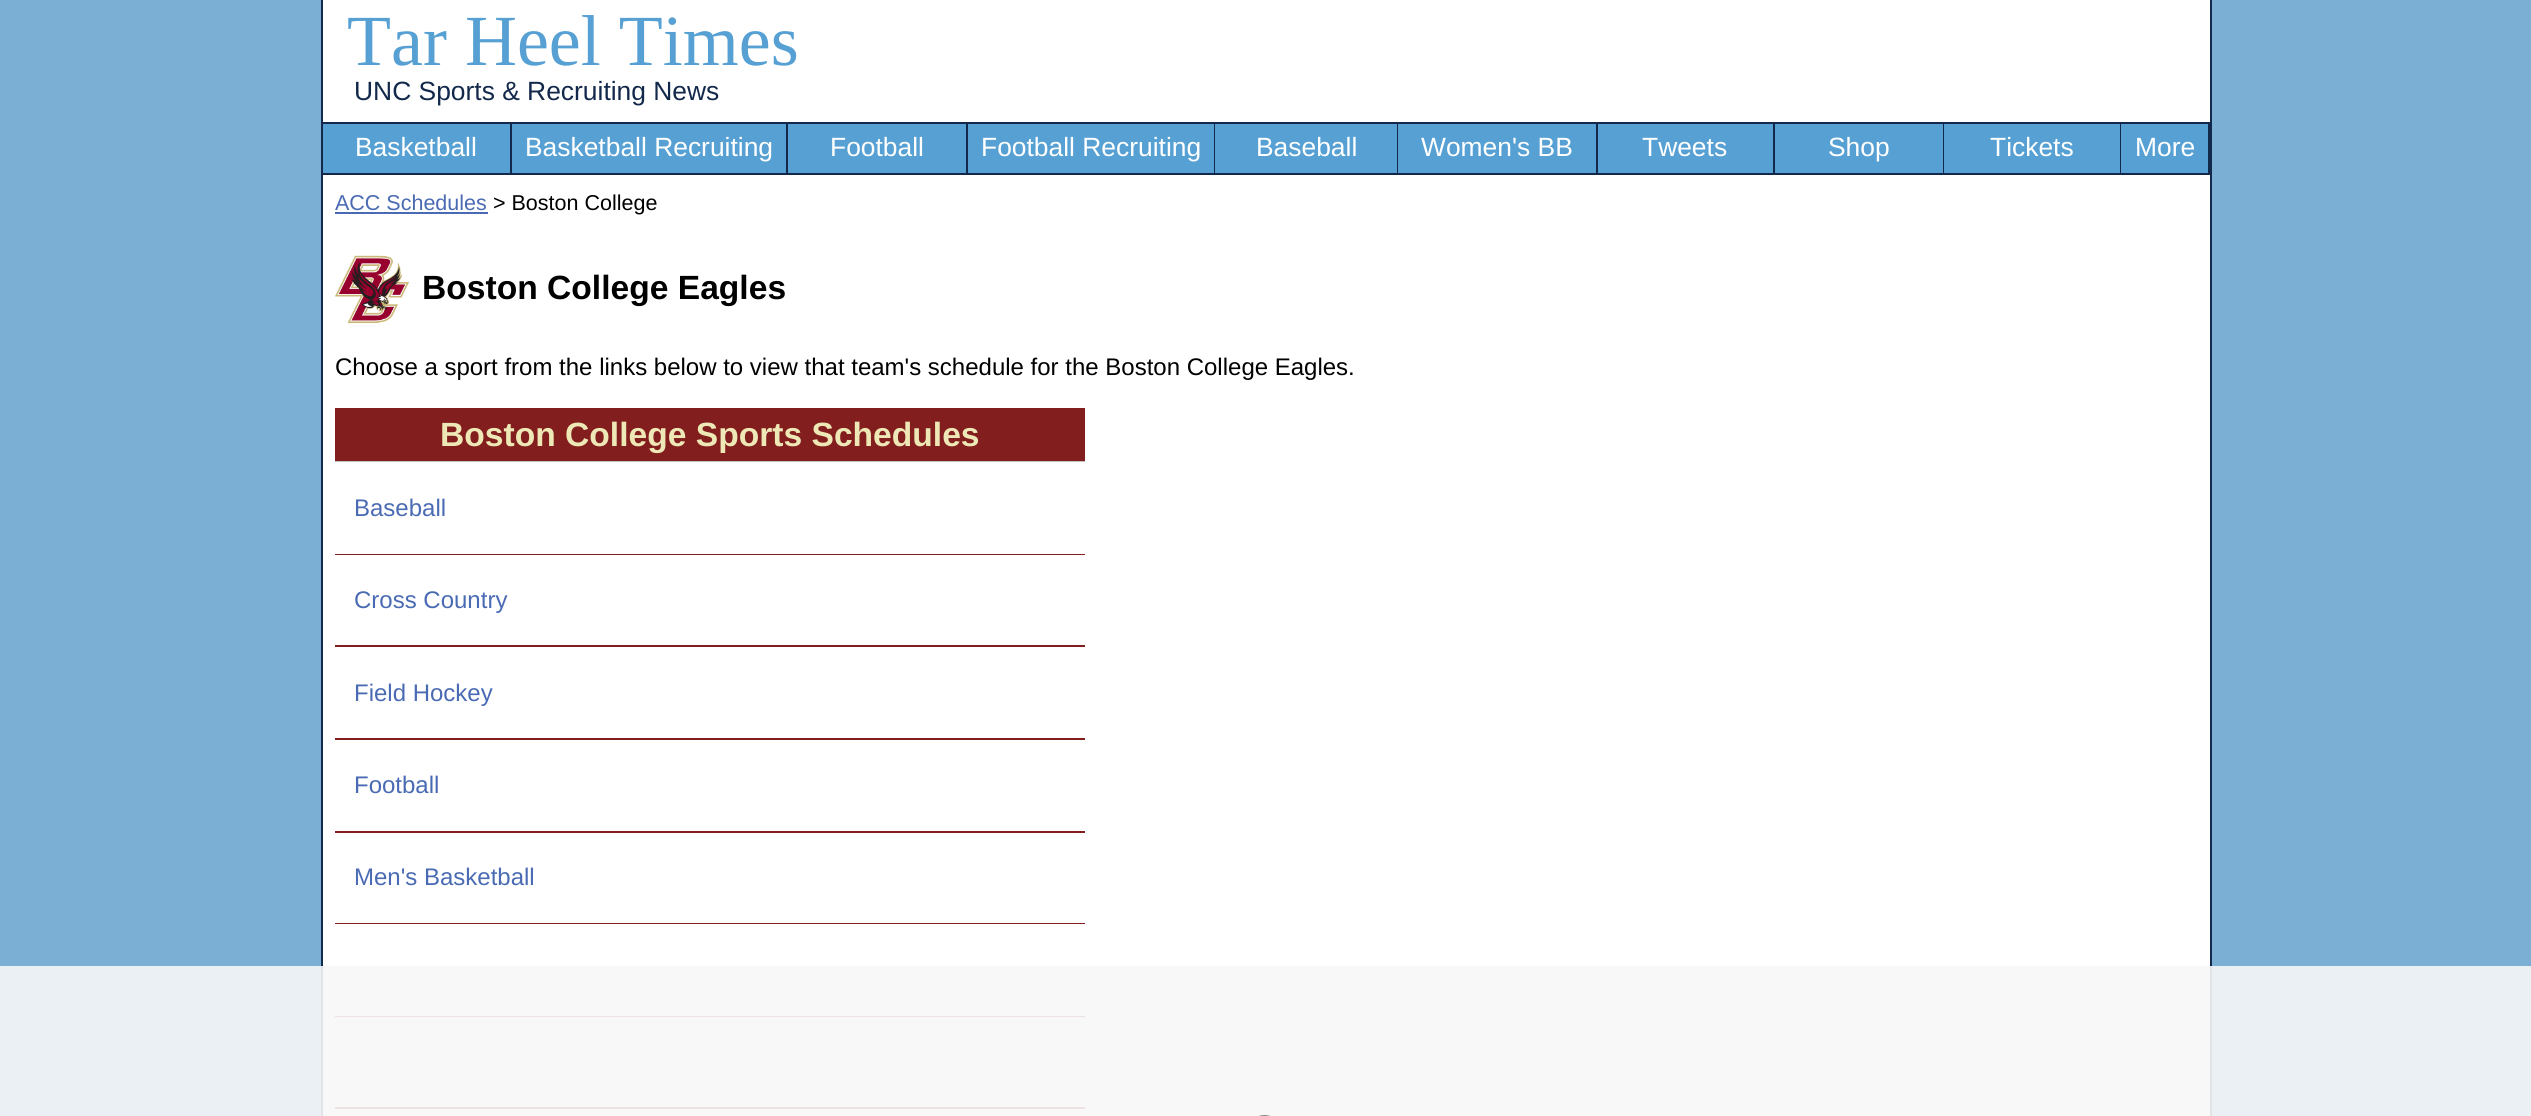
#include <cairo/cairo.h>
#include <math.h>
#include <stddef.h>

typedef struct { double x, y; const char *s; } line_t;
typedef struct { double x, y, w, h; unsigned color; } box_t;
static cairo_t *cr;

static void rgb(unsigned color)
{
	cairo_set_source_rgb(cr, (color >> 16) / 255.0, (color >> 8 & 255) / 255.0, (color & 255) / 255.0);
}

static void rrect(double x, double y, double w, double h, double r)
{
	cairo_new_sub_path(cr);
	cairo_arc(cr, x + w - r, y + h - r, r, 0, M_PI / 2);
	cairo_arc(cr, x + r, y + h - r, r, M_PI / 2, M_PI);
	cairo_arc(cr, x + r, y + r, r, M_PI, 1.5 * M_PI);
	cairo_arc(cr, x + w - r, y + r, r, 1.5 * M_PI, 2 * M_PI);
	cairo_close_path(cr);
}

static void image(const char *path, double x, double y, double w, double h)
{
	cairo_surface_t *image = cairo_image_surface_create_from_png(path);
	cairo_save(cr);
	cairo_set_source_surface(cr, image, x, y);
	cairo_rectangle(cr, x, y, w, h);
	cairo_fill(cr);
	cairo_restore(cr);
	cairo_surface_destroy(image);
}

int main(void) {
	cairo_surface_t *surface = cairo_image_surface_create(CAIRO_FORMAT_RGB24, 2531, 1116);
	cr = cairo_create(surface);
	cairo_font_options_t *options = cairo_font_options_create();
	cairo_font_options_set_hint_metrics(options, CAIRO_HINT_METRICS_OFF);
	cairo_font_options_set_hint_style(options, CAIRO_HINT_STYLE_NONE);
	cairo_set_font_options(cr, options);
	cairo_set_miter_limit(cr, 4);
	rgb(0x7bafd4);
	cairo_paint(cr);
	{
		static const box_t items[] = {
			{323, 0, 1887, 1116, 0xffffff},
			{2210, 0, 2, 1116, 0x13294b},
			{321, 0, 2, 1116, 0x13294b},
			{323, 124, 1620, 49, 0x56a0d3},
			{323, 122, 1887, 2, 0x13294b},
			{510, 122, 2, 52, 0x13294b},
			{323, 173, 189, 2, 0x13294b},
			{786, 122, 2, 52, 0x13294b},
			{512, 173, 276, 2, 0x13294b},
			{966, 122, 2, 52, 0x13294b},
			{788, 173, 180, 2, 0x13294b},
			{1214, 122, 1, 52, 0x13294b},
			{968, 173, 247, 2, 0x13294b},
			{1397, 122, 1, 52, 0x13294b},
			{1215, 173, 183, 2, 0x13294b},
			{1596, 122, 2, 52, 0x13294b},
			{1398, 173, 200, 2, 0x13294b},
			{1773, 122, 2, 52, 0x13294b},
			{1598, 173, 177, 2, 0x13294b},
			{1943, 122, 1, 52, 0x13294b},
			{1775, 173, 169, 2, 0x13294b},
			{1944, 124, 176, 49, 0x56a0d3},
			{2120, 122, 1, 52, 0x13294b},
			{1944, 173, 177, 2, 0x13294b},
			{2121, 124, 87, 49, 0x56a0d3},
			{2208, 122, 2, 52, 0x13294b},
			{2121, 173, 89, 2, 0x13294b},
			{335, 212, 153, 2, 0x4a6bb3},
		};
		for (size_t i = 0; i < sizeof items / sizeof *items; i++) {
			rgb(items[i].color);
			cairo_rectangle(cr, items[i].x, items[i].y, items[i].w, items[i].h);
			cairo_fill(cr);
		}
	}
	image("img/1.png", 334, 255, 76, 69);
	rgb(0x821e1e);
	cairo_rectangle(cr, 335, 408, 750, 53);
	cairo_fill(cr);
	rgb(0xc0c0c0);
	cairo_rectangle(cr, 335, 461, 750, 1);
	cairo_fill(cr);
	rgb(0x821e1e);
	cairo_rectangle(cr, 335, 554, 750, 1);
	cairo_fill(cr);
	cairo_rectangle(cr, 335, 645, 750, 2);
	cairo_fill(cr);
	cairo_rectangle(cr, 335, 738, 750, 2);
	cairo_fill(cr);
	cairo_rectangle(cr, 335, 831, 750, 2);
	cairo_fill(cr);
	cairo_rectangle(cr, 335, 923, 750, 1);
	cairo_fill(cr);
	cairo_rectangle(cr, 335, 1016, 750, 1);
	cairo_fill(cr);
	cairo_rectangle(cr, 335, 1107, 750, 2);
	cairo_fill(cr);
	cairo_set_source_rgba(cr, 0.969, 0.969, 0.969, 0.9);
	cairo_rectangle(cr, 0, 966, 2531, 150);
	cairo_fill(cr);
	rrect(1249, 1116, 31, 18, 15.5);
	rgb(0x888888);
	cairo_stroke(cr);
	cairo_select_font_face(cr, "Liberation Serif", CAIRO_FONT_SLANT_NORMAL, CAIRO_FONT_WEIGHT_NORMAL);
	cairo_set_font_size(cr, 72);
	rgb(0x56a0d3);
	cairo_move_to(cr, 347, 65);
	cairo_show_text(cr, "Tar Heel Times");
	cairo_select_font_face(cr, "Liberation Sans", CAIRO_FONT_SLANT_NORMAL, CAIRO_FONT_WEIGHT_NORMAL);
	cairo_set_font_size(cr, 26.4);
	rgb(0x13294b);
	cairo_move_to(cr, 354, 100);
	cairo_show_text(cr, "UNC Sports & Recruiting News");
	rgb(0xffffff);
	{
		static const line_t items[] = {
			{355, 156, "Basketball"},
			{525, 156, "Basketball Recruiting"},
			{830, 156, "Football"},
			{981, 156, "Football Recruiting"},
			{1256, 156, "Baseball"},
			{1421, 156, "Women's BB"},
			{1642, 156, "Tweets"},
			{1828, 156, "Shop"},
			{1990, 156, "Tickets"},
			{2135, 156, "More"},
		};
		for (size_t i = 0; i < sizeof items / sizeof *items; i++) {
			cairo_move_to(cr, items[i].x, items[i].y);
			cairo_show_text(cr, items[i].s);
		}
	}
	cairo_set_font_size(cr, 21.5);
	rgb(0x4a6bb3);
	cairo_move_to(cr, 335, 210);
	cairo_show_text(cr, "ACC Schedules");
	rgb(0x000000);
	cairo_move_to(cr, 493, 210);
	cairo_show_text(cr, "> Boston College");
	cairo_select_font_face(cr, "Liberation Sans", CAIRO_FONT_SLANT_NORMAL, CAIRO_FONT_WEIGHT_BOLD);
	cairo_set_font_size(cr, 33.6);
	cairo_move_to(cr, 422, 299);
	cairo_show_text(cr, "Boston College Eagles");
	cairo_select_font_face(cr, "Liberation Sans", CAIRO_FONT_SLANT_NORMAL, CAIRO_FONT_WEIGHT_NORMAL);
	cairo_set_font_size(cr, 24);
	cairo_move_to(cr, 335, 375);
	cairo_show_text(cr, "Choose a sport from the links below to view that team's schedule for the Boston College Eagles.");
	cairo_select_font_face(cr, "Liberation Sans", CAIRO_FONT_SLANT_NORMAL, CAIRO_FONT_WEIGHT_BOLD);
	cairo_set_font_size(cr, 33.6);
	rgb(0xeee8b7);
	cairo_move_to(cr, 440, 446);
	cairo_show_text(cr, "Boston College Sports Schedules");
	cairo_select_font_face(cr, "Liberation Sans", CAIRO_FONT_SLANT_NORMAL, CAIRO_FONT_WEIGHT_NORMAL);
	cairo_set_font_size(cr, 24);
	rgb(0x4a6bb3);
	{
		static const line_t items[] = {
			{354, 516, "Baseball"},
			{354, 608, "Cross Country"},
			{354, 701, "Field Hockey"},
			{354, 793, "Football"},
			{354, 885, "Men's Basketball"},
		};
		for (size_t i = 0; i < sizeof items / sizeof *items; i++) {
			cairo_move_to(cr, items[i].x, items[i].y);
			cairo_show_text(cr, items[i].s);
		}
	}
	cairo_surface_write_to_png(surface, "page.png");
	cairo_font_options_destroy(options);
	cairo_destroy(cr);
	cairo_surface_destroy(surface);
	return 0;
}
